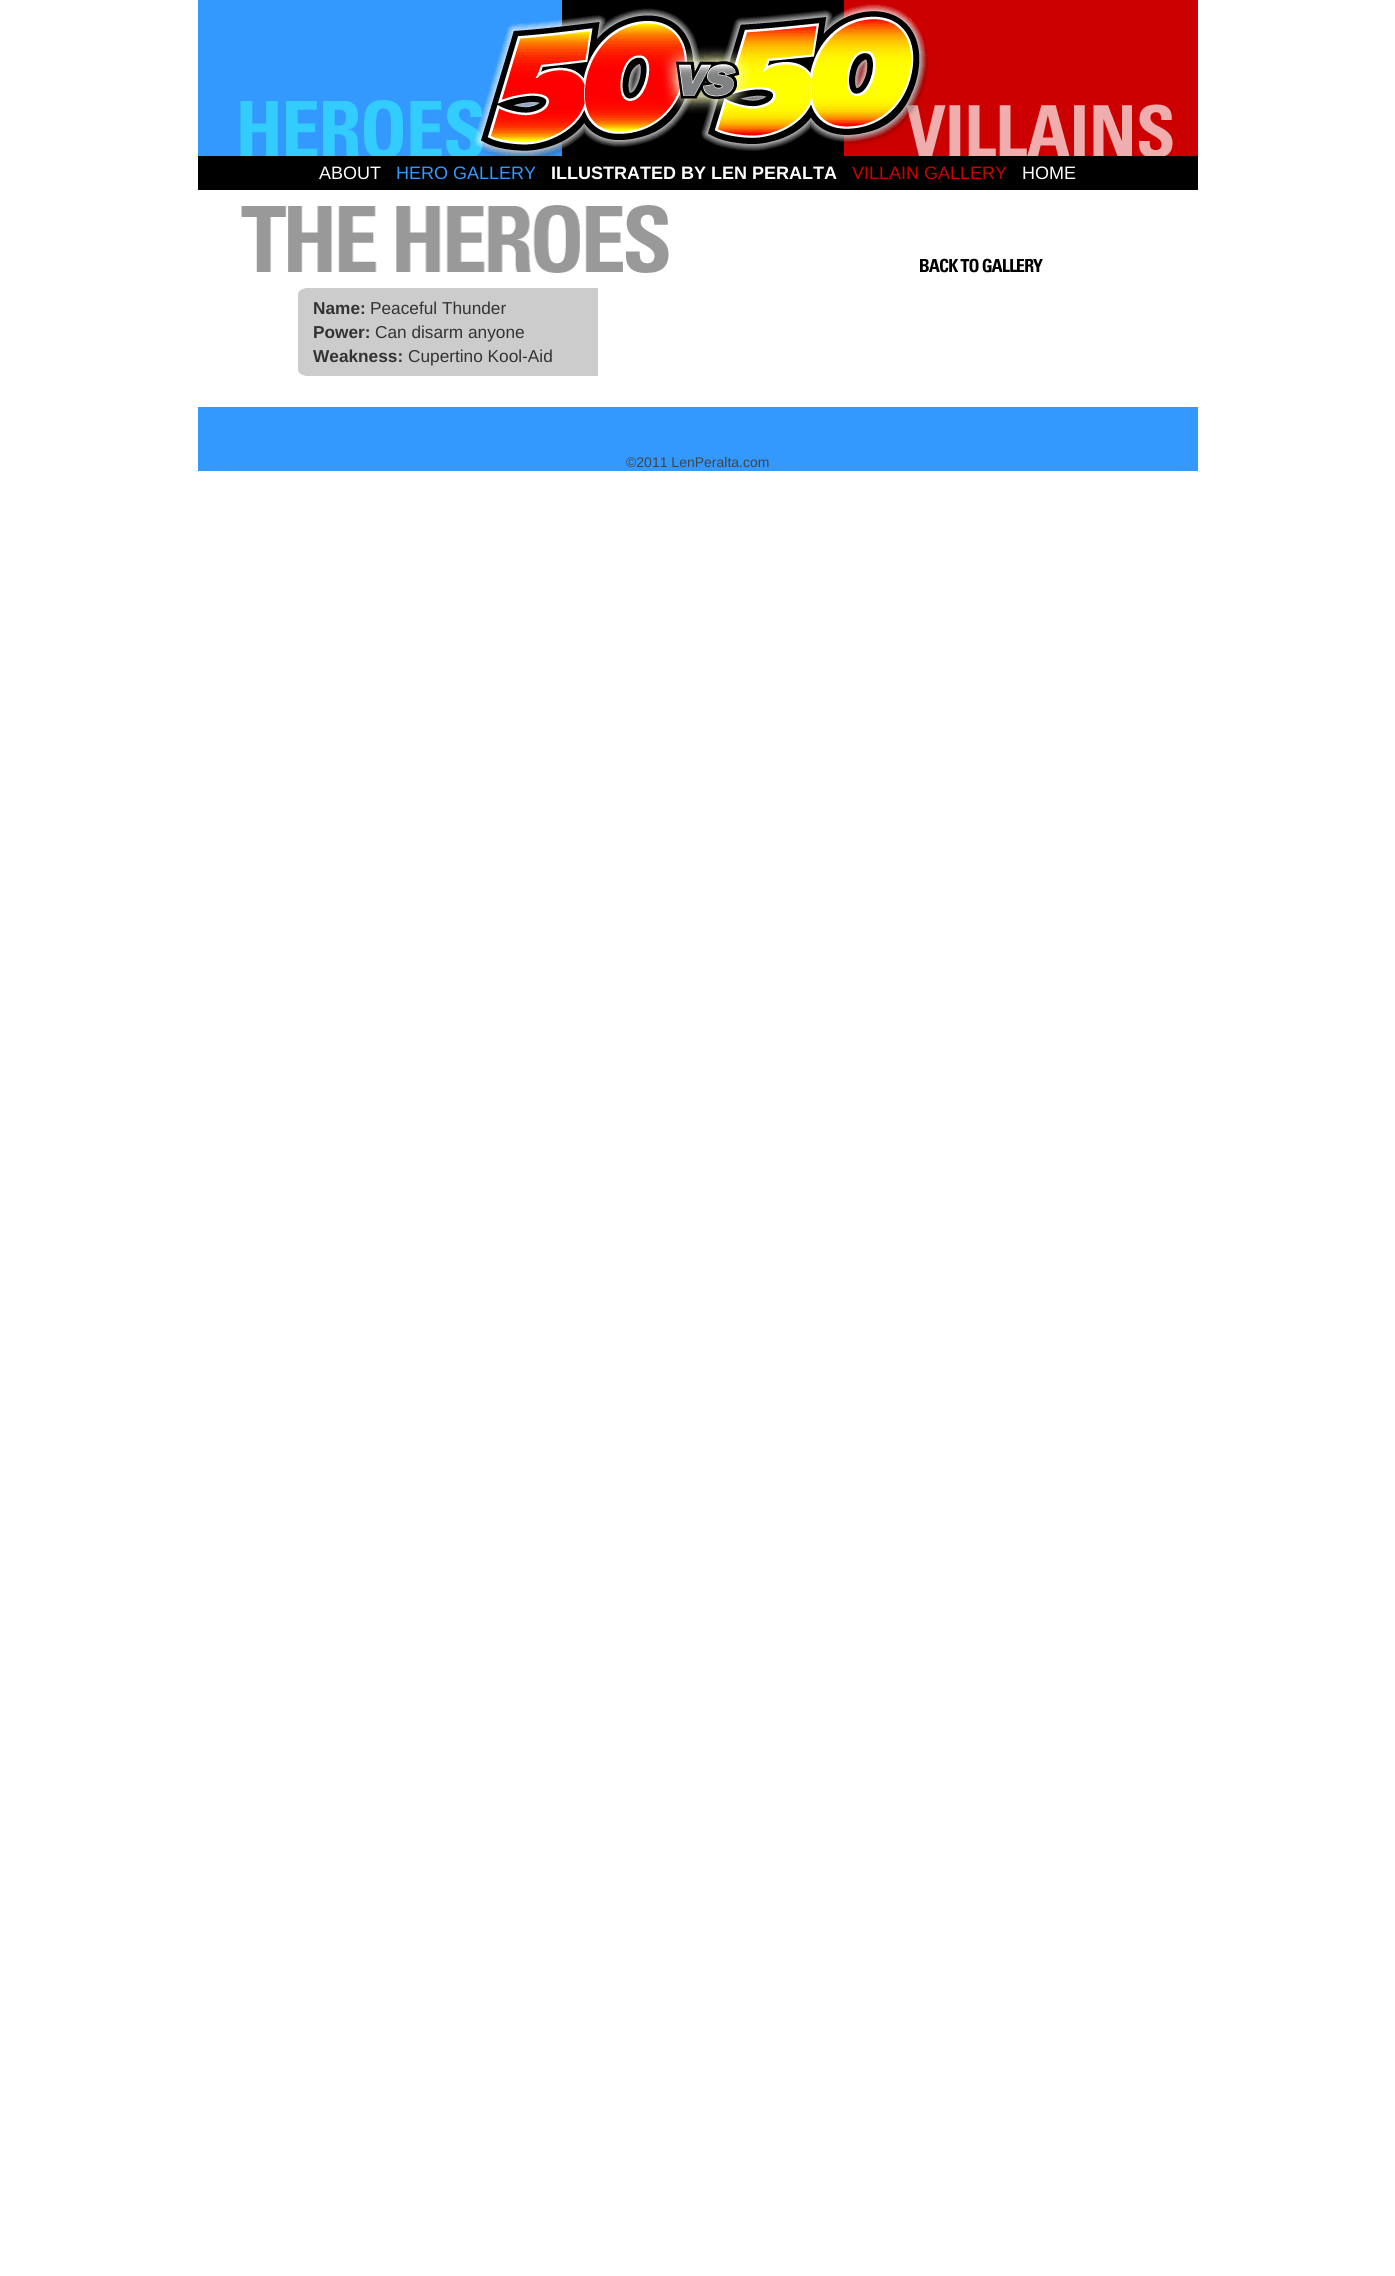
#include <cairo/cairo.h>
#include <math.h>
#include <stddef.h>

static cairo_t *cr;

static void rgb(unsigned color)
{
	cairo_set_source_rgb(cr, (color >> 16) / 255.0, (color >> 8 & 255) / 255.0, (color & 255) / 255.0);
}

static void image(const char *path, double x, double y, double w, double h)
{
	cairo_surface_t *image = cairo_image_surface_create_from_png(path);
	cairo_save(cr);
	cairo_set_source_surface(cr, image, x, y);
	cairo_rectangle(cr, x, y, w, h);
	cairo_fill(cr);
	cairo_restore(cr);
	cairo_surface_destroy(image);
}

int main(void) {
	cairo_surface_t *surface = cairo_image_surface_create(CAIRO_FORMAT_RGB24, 1395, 2276);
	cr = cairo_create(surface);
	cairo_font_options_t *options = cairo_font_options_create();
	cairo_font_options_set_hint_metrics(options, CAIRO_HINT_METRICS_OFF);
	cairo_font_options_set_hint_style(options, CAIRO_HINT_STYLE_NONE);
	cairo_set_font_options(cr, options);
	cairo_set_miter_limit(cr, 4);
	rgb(0xffffff);
	cairo_paint(cr);
	rgb(0x000000);
	cairo_rectangle(cr, 198, 156, 1000, 34);
	cairo_fill(cr);
	image("img/1.png", 198, 0, 1000, 156);
	image("img/2.png", 241, 205, 428, 68);
	image("img/3.png", 920, 258, 123, 15);
	image("img/4.png", 298, 288, 300, 8);
	rgb(0xcccccc);
	cairo_rectangle(cr, 298, 296, 300, 72);
	cairo_fill(cr);
	image("img/5.png", 298, 368, 300, 8);
	rgb(0x3399ff);
	cairo_rectangle(cr, 198, 407, 1000, 64);
	cairo_fill(cr);
	cairo_select_font_face(cr, "Liberation Sans", CAIRO_FONT_SLANT_NORMAL, CAIRO_FONT_WEIGHT_NORMAL);
	cairo_set_font_size(cr, 18);
	rgb(0xffffff);
	cairo_move_to(cr, 319, 179);
	cairo_show_text(cr, "ABOUT");
	rgb(0x3399ff);
	cairo_move_to(cr, 396, 179);
	cairo_show_text(cr, "HERO GALLERY");
	cairo_select_font_face(cr, "Liberation Sans", CAIRO_FONT_SLANT_NORMAL, CAIRO_FONT_WEIGHT_BOLD);
	rgb(0xffffff);
	cairo_move_to(cr, 551, 179);
	cairo_show_text(cr, "ILLUSTRATED BY LEN PERALTA");
	cairo_select_font_face(cr, "Liberation Sans", CAIRO_FONT_SLANT_NORMAL, CAIRO_FONT_WEIGHT_NORMAL);
	rgb(0xcc0000);
	cairo_move_to(cr, 852, 179);
	cairo_show_text(cr, "VILLAIN GALLERY");
	rgb(0xffffff);
	cairo_move_to(cr, 1022, 179);
	cairo_show_text(cr, "HOME");
	cairo_select_font_face(cr, "Liberation Sans", CAIRO_FONT_SLANT_NORMAL, CAIRO_FONT_WEIGHT_BOLD);
	cairo_set_font_size(cr, 17.25);
	rgb(0x333333);
	cairo_move_to(cr, 313, 314);
	cairo_show_text(cr, "Name:");
	cairo_select_font_face(cr, "Liberation Sans", CAIRO_FONT_SLANT_NORMAL, CAIRO_FONT_WEIGHT_NORMAL);
	cairo_move_to(cr, 370, 314);
	cairo_show_text(cr, "Peaceful Thunder");
	cairo_select_font_face(cr, "Liberation Sans", CAIRO_FONT_SLANT_NORMAL, CAIRO_FONT_WEIGHT_BOLD);
	cairo_move_to(cr, 313, 338);
	cairo_show_text(cr, "Power:");
	cairo_select_font_face(cr, "Liberation Sans", CAIRO_FONT_SLANT_NORMAL, CAIRO_FONT_WEIGHT_NORMAL);
	cairo_move_to(cr, 375, 338);
	cairo_show_text(cr, "Can disarm anyone");
	cairo_select_font_face(cr, "Liberation Sans", CAIRO_FONT_SLANT_NORMAL, CAIRO_FONT_WEIGHT_BOLD);
	cairo_move_to(cr, 313, 362);
	cairo_show_text(cr, "Weakness:");
	cairo_select_font_face(cr, "Liberation Sans", CAIRO_FONT_SLANT_NORMAL, CAIRO_FONT_WEIGHT_NORMAL);
	cairo_move_to(cr, 408, 362);
	cairo_show_text(cr, "Cupertino Kool-Aid");
	cairo_set_font_size(cr, 14);
	rgb(0x444444);
	cairo_move_to(cr, 626, 467);
	cairo_show_text(cr, "©2011 LenPeralta.com");
	cairo_surface_write_to_png(surface, "page.png");
	cairo_font_options_destroy(options);
	cairo_destroy(cr);
	cairo_surface_destroy(surface);
	return 0;
}
